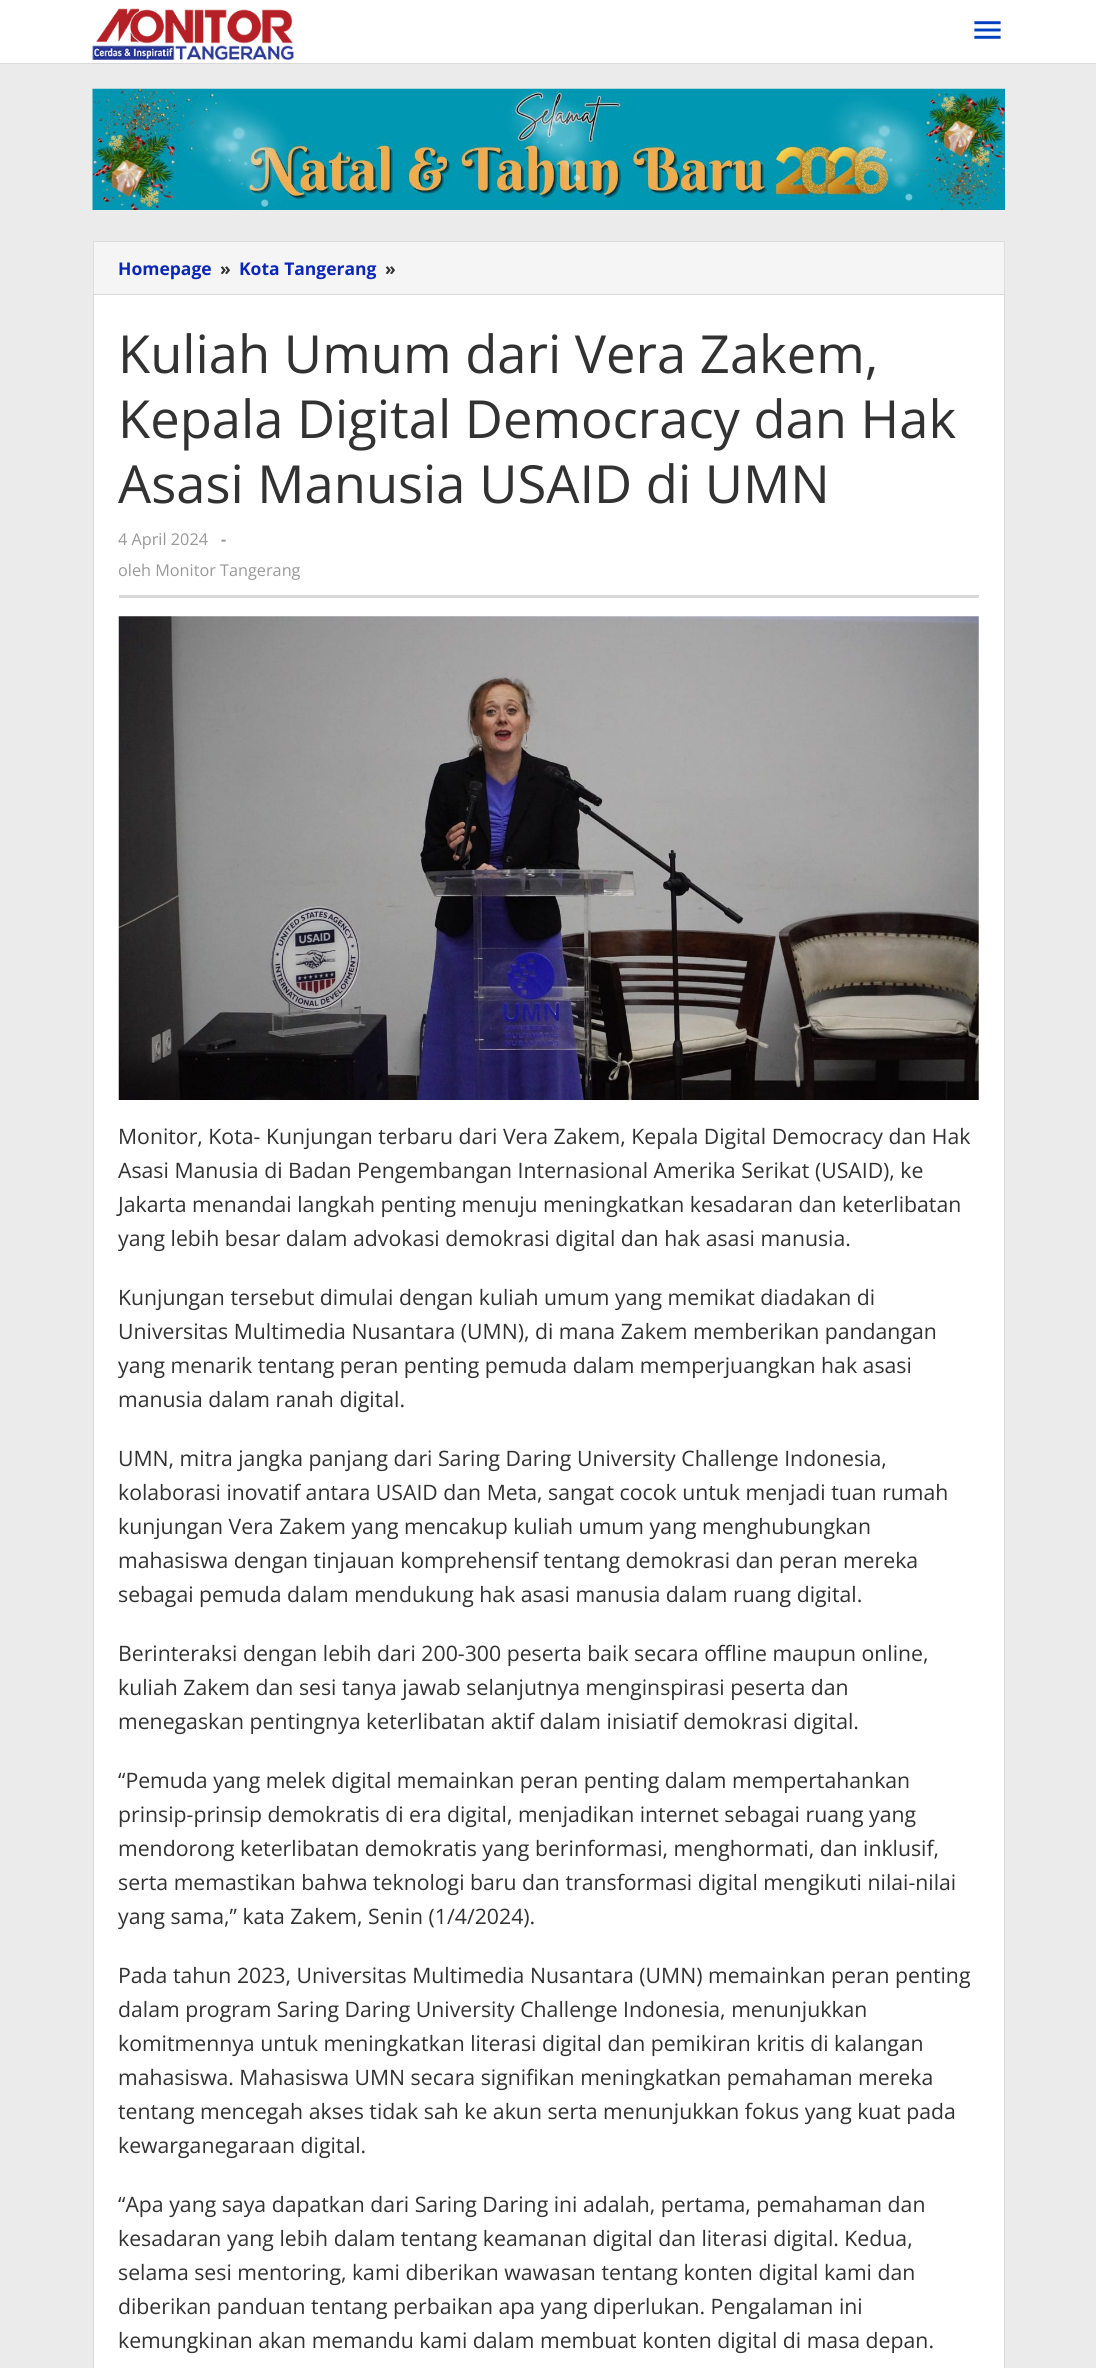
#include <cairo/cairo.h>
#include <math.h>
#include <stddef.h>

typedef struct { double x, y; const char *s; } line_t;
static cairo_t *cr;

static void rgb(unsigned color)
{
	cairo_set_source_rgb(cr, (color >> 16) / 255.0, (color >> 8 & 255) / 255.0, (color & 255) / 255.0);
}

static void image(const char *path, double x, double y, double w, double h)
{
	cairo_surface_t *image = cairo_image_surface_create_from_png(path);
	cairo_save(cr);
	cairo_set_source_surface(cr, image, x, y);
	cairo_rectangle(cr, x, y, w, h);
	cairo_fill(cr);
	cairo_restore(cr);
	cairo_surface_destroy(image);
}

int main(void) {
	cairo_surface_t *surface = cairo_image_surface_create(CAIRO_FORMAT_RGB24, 1096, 2368);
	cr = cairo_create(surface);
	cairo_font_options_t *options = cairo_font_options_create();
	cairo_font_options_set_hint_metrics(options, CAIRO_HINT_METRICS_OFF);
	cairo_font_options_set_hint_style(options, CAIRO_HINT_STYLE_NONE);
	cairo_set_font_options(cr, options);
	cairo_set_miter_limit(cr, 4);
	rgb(0xebebeb);
	cairo_paint(cr);
	rgb(0xffffff);
	cairo_rectangle(cr, 0, 0, 1096, 63);
	cairo_fill(cr);
	rgb(0xd9d9d9);
	cairo_rectangle(cr, 0, 63, 1096, 1);
	cairo_fill(cr);
	image("img/1.png", 92, 8, 202, 52);
	image("img/2.png", 974, 21, 27, 18);
	image("img/3.png", 92, 88, 913, 122);
	rgb(0xf5f5f5);
	cairo_rectangle(cr, 93.5, 241.5, 911, 53);
	cairo_fill_preserve(cr);
	rgb(0xdddddd);
	cairo_set_line_width(cr, 1);
	cairo_stroke(cr);
	rgb(0xffffff);
	cairo_rectangle(cr, 93.5, 294.5, 911, 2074);
	cairo_fill_preserve(cr);
	rgb(0xd9d9d9);
	cairo_stroke(cr);
	cairo_rectangle(cr, 119, 595, 860, 3);
	cairo_fill(cr);
	image("img/4.png", 118, 616, 861, 484);
	cairo_select_font_face(cr, "Open Sans", CAIRO_FONT_SLANT_NORMAL, CAIRO_FONT_WEIGHT_BOLD);
	cairo_set_font_size(cr, 17.5);
	rgb(0x0c26b7);
	cairo_move_to(cr, 118, 275);
	cairo_show_text(cr, "Homepage");
	rgb(0x323233);
	cairo_move_to(cr, 220, 275);
	cairo_show_text(cr, "»");
	rgb(0x0c26b7);
	cairo_move_to(cr, 239, 275);
	cairo_show_text(cr, "Kota Tangerang");
	rgb(0x323233);
	cairo_move_to(cr, 385, 275);
	cairo_show_text(cr, "»");
	cairo_select_font_face(cr, "Open Sans", CAIRO_FONT_SLANT_NORMAL, CAIRO_FONT_WEIGHT_NORMAL);
	cairo_set_font_size(cr, 52.5);
	{
		static const line_t items[] = {
			{118, 373, "Kuliah Umum dari Vera Zakem,"},
			{118, 438, "Kepala Digital Democracy dan Hak"},
			{118, 503, "Asasi Manusia USAID di UMN"},
		};
		for (size_t i = 0; i < sizeof items / sizeof *items; i++) {
			cairo_move_to(cr, items[i].x, items[i].y);
			cairo_show_text(cr, items[i].s);
		}
	}
	cairo_set_font_size(cr, 16.25);
	rgb(0x999999);
	cairo_move_to(cr, 118, 545);
	cairo_show_text(cr, "4 April 2024");
	cairo_select_font_face(cr, "Open Sans", CAIRO_FONT_SLANT_NORMAL, CAIRO_FONT_WEIGHT_BOLD);
	cairo_move_to(cr, 221, 545);
	cairo_show_text(cr, "-");
	cairo_select_font_face(cr, "Open Sans", CAIRO_FONT_SLANT_NORMAL, CAIRO_FONT_WEIGHT_NORMAL);
	cairo_move_to(cr, 118, 576);
	cairo_show_text(cr, "oleh Monitor Tangerang");
	cairo_set_font_size(cr, 21.25);
	rgb(0x323233);
	{
		static const line_t items[] = {
			{118, 1144, "Monitor, Kota- Kunjungan terbaru dari Vera Zakem, Kepala Digital Democracy dan Hak"},
			{118, 1178, "Asasi Manusia di Badan Pengembangan Internasional Amerika Serikat (USAID), ke"},
			{118, 1212, "Jakarta menandai langkah penting menuju meningkatkan kesadaran dan keterlibatan"},
			{118, 1246, "yang lebih besar dalam advokasi demokrasi digital dan hak asasi manusia."},
			{118, 1305, "Kunjungan tersebut dimulai dengan kuliah umum yang memikat diadakan di"},
			{118, 1339, "Universitas Multimedia Nusantara (UMN), di mana Zakem memberikan pandangan"},
			{118, 1373, "yang menarik tentang peran penting pemuda dalam memperjuangkan hak asasi"},
			{118, 1407, "manusia dalam ranah digital."},
			{118, 1466, "UMN, mitra jangka panjang dari Saring Daring University Challenge Indonesia,"},
			{118, 1500, "kolaborasi inovatif antara USAID dan Meta, sangat cocok untuk menjadi tuan rumah"},
			{118, 1534, "kunjungan Vera Zakem yang mencakup kuliah umum yang menghubungkan"},
			{118, 1568, "mahasiswa dengan tinjauan komprehensif tentang demokrasi dan peran mereka"},
			{118, 1602, "sebagai pemuda dalam mendukung hak asasi manusia dalam ruang digital."},
			{118, 1661, "Berinteraksi dengan lebih dari 200-300 peserta baik secara offline maupun online,"},
			{118, 1695, "kuliah Zakem dan sesi tanya jawab selanjutnya menginspirasi peserta dan"},
			{118, 1729, "menegaskan pentingnya keterlibatan aktif dalam inisiatif demokrasi digital."},
			{118, 1788, "“Pemuda yang melek digital memainkan peran penting dalam mempertahankan"},
			{118, 1822, "prinsip-prinsip demokratis di era digital, menjadikan internet sebagai ruang yang"},
			{118, 1856, "mendorong keterlibatan demokratis yang berinformasi, menghormati, dan inklusif,"},
			{118, 1890, "serta memastikan bahwa teknologi baru dan transformasi digital mengikuti nilai-nilai"},
			{118, 1924, "yang sama,” kata Zakem, Senin (1/4/2024)."},
			{118, 1983, "Pada tahun 2023, Universitas Multimedia Nusantara (UMN) memainkan peran penting"},
			{118, 2017, "dalam program Saring Daring University Challenge Indonesia, menunjukkan"},
			{118, 2051, "komitmennya untuk meningkatkan literasi digital dan pemikiran kritis di kalangan"},
			{118, 2085, "mahasiswa. Mahasiswa UMN secara signifikan meningkatkan pemahaman mereka"},
			{118, 2119, "tentang mencegah akses tidak sah ke akun serta menunjukkan fokus yang kuat pada"},
			{118, 2153, "kewarganegaraan digital."},
			{118, 2212, "“Apa yang saya dapatkan dari Saring Daring ini adalah, pertama, pemahaman dan"},
			{118, 2246, "kesadaran yang lebih dalam tentang keamanan digital dan literasi digital. Kedua,"},
			{118, 2280, "selama sesi mentoring, kami diberikan wawasan tentang konten digital kami dan"},
			{118, 2314, "diberikan panduan tentang perbaikan apa yang diperlukan. Pengalaman ini"},
			{118, 2348, "kemungkinan akan memandu kami dalam membuat konten digital di masa depan."},
		};
		for (size_t i = 0; i < sizeof items / sizeof *items; i++) {
			cairo_move_to(cr, items[i].x, items[i].y);
			cairo_show_text(cr, items[i].s);
		}
	}
	cairo_surface_write_to_png(surface, "page.png");
	cairo_font_options_destroy(options);
	cairo_destroy(cr);
	cairo_surface_destroy(surface);
	return 0;
}
